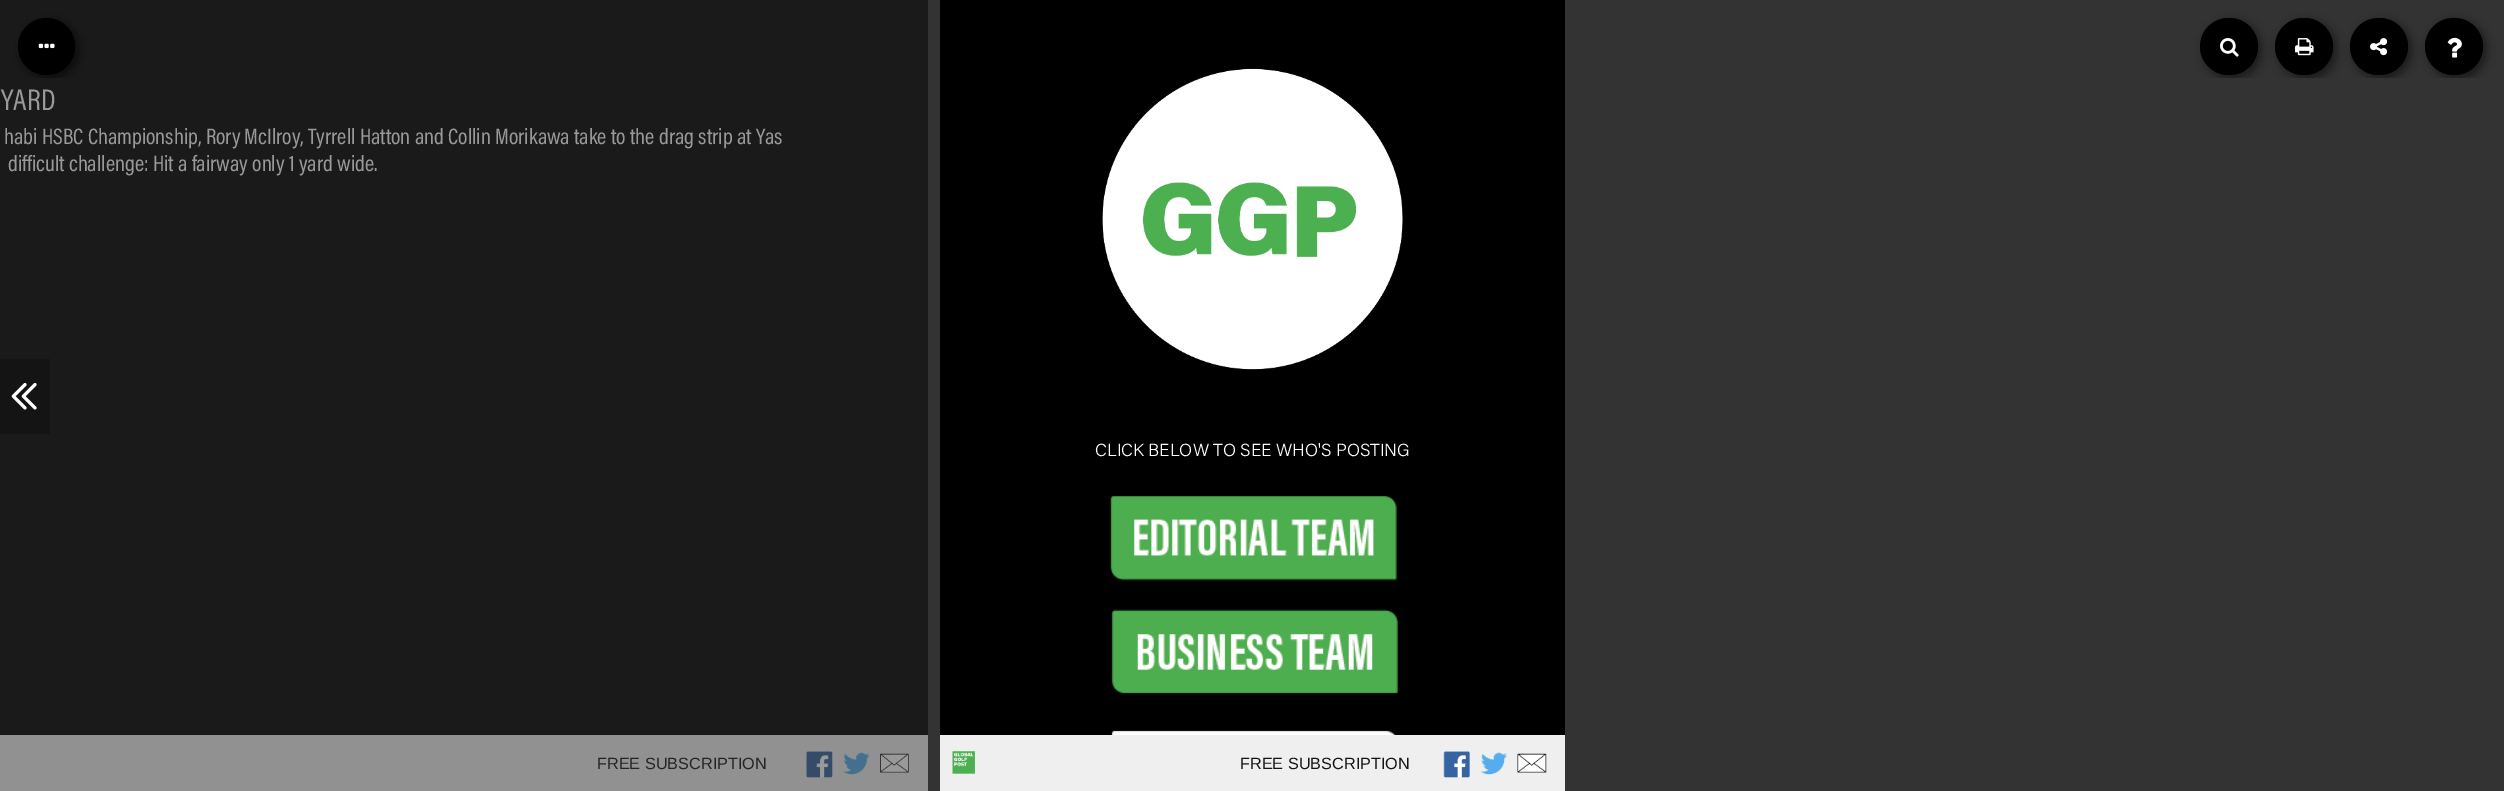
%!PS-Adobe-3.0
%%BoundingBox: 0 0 2504 791
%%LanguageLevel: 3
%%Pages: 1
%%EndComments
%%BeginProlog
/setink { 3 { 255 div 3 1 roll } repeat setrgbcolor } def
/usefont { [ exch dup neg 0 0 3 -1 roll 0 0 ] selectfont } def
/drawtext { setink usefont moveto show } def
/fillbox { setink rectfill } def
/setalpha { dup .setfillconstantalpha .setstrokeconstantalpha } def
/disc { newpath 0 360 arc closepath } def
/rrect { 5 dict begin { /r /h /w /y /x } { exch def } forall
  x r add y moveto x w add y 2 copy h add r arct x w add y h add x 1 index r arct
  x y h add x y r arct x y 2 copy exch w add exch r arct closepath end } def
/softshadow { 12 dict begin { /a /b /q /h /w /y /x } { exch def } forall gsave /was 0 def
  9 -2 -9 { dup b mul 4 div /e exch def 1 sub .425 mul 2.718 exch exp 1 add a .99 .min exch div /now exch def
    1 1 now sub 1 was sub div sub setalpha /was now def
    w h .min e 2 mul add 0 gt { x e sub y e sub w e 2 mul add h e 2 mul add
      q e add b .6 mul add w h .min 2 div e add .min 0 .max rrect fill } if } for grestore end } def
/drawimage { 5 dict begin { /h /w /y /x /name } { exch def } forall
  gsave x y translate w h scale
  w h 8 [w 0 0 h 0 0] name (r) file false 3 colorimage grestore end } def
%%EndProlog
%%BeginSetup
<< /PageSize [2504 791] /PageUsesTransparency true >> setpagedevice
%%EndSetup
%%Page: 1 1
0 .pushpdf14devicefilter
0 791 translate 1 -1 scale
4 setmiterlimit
0 0 2504 791 51 51 51 fillbox
0 0 928 735 26 26 26 fillbox
gsave
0 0 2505 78 rectclip
0 0 0 setink
21 21 58 58 29 5 0.5 softshadow
grestore
0 0 0 setink
46.5 46.5 28.5 disc fill
(assets/img1.rgb) 38 43 17 6 drawimage
gsave
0 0 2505 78 rectclip
2429 21 57 58 28.5 5 0.5 softshadow
grestore
2425 18 58 57 28.5 rrect fill
gsave
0 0 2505 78 rectclip
2354 21 57 58 28.5 5 0.5 softshadow
grestore
2350 18 58 57 28.5 rrect fill
gsave
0 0 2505 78 rectclip
2279 21 57 58 28.5 5 0.5 softshadow
grestore
2275 18 58 57 28.5 rrect fill
gsave
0 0 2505 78 rectclip
2204 21 57 58 28.5 5 0.5 softshadow
grestore
2200 18 58 57 28.5 rrect fill
(assets/img2.rgb) 2220 38 19 19 drawimage
(assets/img3.rgb) 2295 38 19 18 drawimage
(assets/img4.rgb) 2370 38 18 18 drawimage
(assets/img5.rgb) 2447 37 15 21 drawimage
(YARD) 1 110 /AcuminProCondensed-Regular 30 153 153 153 drawtext
(habi HSBC Championship, Rory McIlroy, Tyrrell Hatton and Collin Morikawa take to the drag strip at Yas) 4 144 /AcuminProCondensed-Regular 22.5 153 153 153 drawtext
(difficult challenge: Hit a fairway only 1 yard wide.) 8 171 /AcuminProCondensed-Regular 22.5 153 153 153 drawtext
0 735 928 56 145 145 145 fillbox
(FREE SUBSCRIPTION) 597 769 /LiberationSans-Regular 16.25 36 36 36 drawtext
(assets/img6.rgb) 806 751 27 27 drawimage
(assets/img7.rgb) 843 752 27 23 drawimage
(assets/img8.rgb) 880 753 29 20 drawimage
940 0 625 735 0 0 0 fillbox
(assets/img9.rgb) 1102 68 301 302 drawimage
(CLICK BELOW TO SEE WHO'S POSTING) 1095 456 /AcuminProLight-Light 17.5 255 255 255 drawtext
(assets/img10.rgb) 1110 496 287 85 drawimage
(assets/img11.rgb) 1111 609 287 85 drawimage
(assets/img12.rgb) 1111 730 285 5 drawimage
940 735 625 56 239 239 239 fillbox
(assets/img13.rgb) 952 751 23 23 drawimage
(FREE SUBSCRIPTION) 1240 769 /LiberationSans-Regular 16.25 21 21 21 drawtext
(assets/img14.rgb) 1443 751 27 27 drawimage
(assets/img15.rgb) 1481 752 27 23 drawimage
(assets/img16.rgb) 1517 753 30 20 drawimage
0 359 50 75 20 20 20 fillbox
(assets/img17.rgb) 11 383 26 27 drawimage
.poppdf14devicefilter showpage
%%EOF
